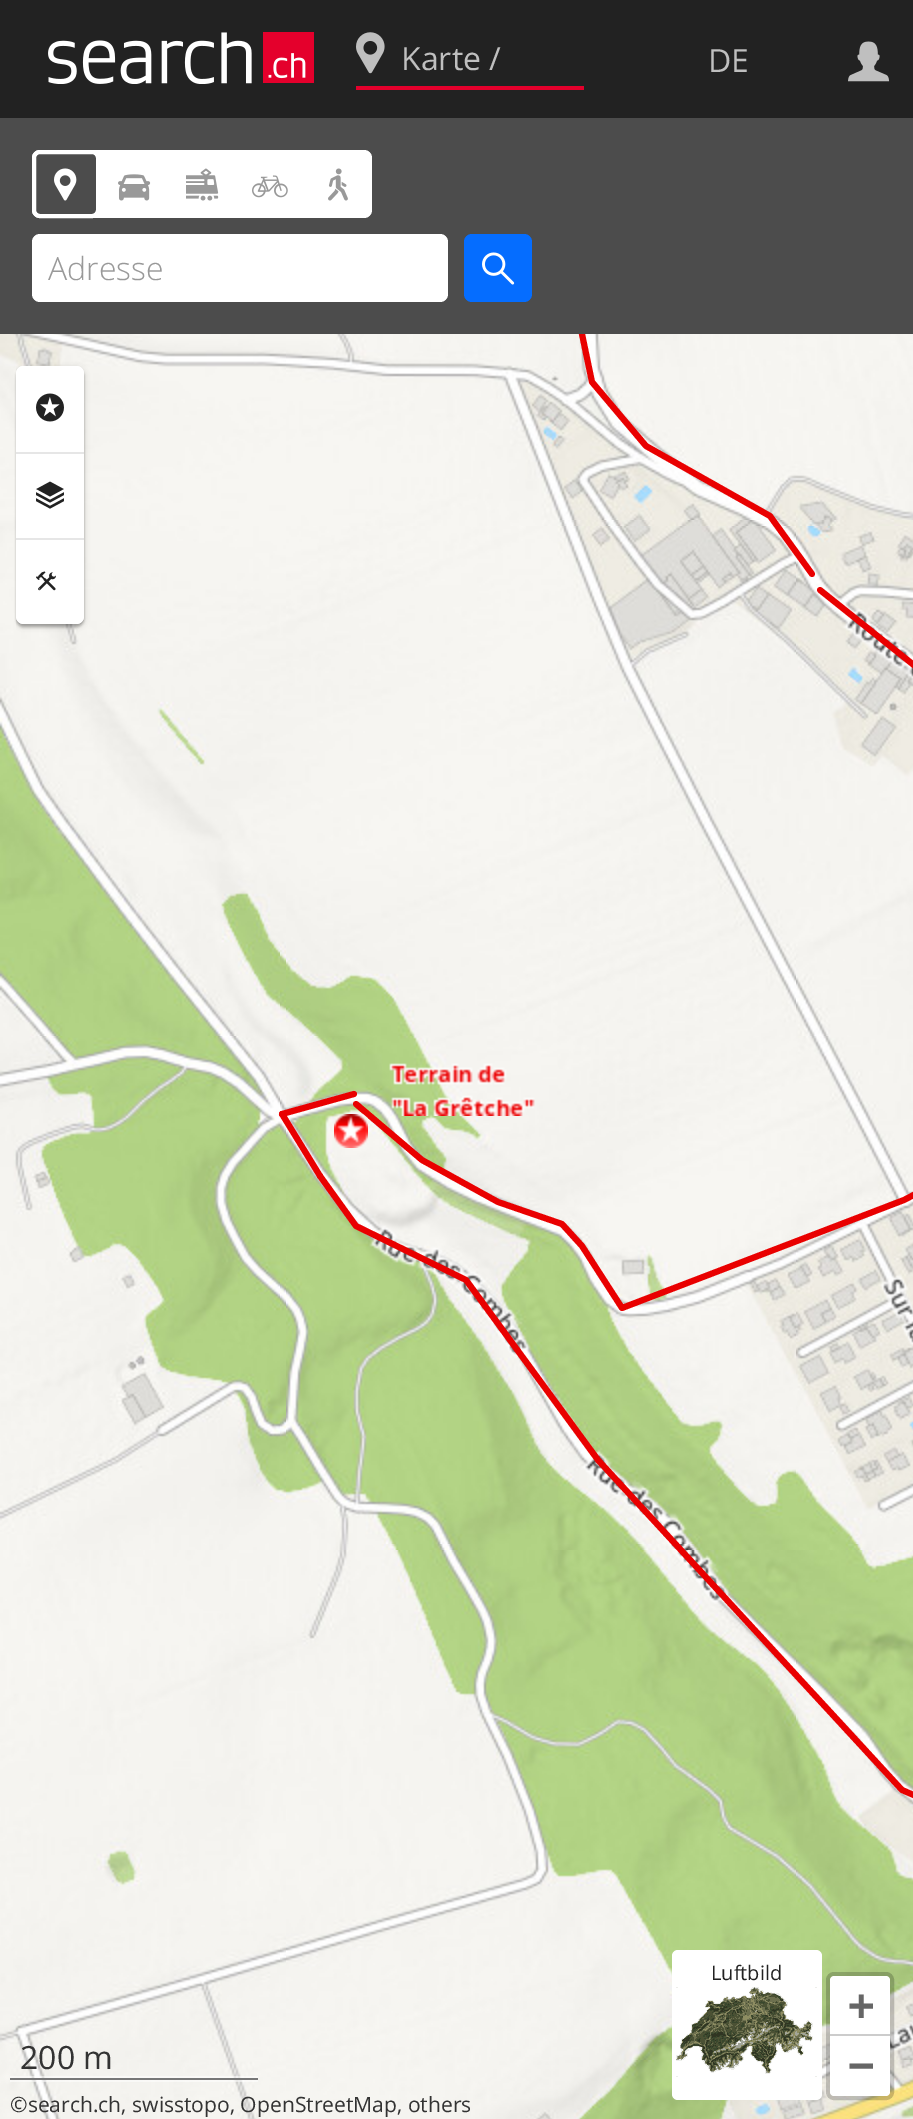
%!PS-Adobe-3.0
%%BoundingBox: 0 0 913 2119
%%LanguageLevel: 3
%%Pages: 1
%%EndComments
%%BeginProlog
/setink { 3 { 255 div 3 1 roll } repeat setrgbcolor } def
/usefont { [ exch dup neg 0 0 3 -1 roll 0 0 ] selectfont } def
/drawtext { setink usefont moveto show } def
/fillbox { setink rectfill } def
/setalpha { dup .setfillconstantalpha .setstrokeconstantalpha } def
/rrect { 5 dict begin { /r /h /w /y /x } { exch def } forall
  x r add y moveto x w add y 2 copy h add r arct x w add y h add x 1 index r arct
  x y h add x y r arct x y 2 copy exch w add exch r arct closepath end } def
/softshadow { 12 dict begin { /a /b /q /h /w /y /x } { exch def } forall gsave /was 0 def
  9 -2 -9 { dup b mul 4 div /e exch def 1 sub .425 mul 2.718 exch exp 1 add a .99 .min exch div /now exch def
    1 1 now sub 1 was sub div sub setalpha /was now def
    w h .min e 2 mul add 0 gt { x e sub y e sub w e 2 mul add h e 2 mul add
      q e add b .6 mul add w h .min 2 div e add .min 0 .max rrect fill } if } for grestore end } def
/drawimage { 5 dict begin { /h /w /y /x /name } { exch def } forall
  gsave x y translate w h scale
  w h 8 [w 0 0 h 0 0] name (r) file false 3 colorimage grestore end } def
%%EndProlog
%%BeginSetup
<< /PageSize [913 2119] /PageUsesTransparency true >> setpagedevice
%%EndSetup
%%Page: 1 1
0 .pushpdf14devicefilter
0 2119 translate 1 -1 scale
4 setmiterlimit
0 0 913 2119 255 255 255 fillbox
(assets/img15.rgb) 286 334 627 192 drawimage
(assets/img17.rgb) 286 526 627 1024 drawimage
233 0 0 setink
6 setlinewidth
1 setlinecap
1 setlinejoin
812 574 moveto 770 516 lineto 646 446 lineto 592 382 lineto 468 -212 lineto stroke
0 0 913 118 34 34 34 fillbox
(assets/img1.rgb) 48 32 266 52 drawimage
356 86 228 4 228 0 44 fillbox
(assets/img2.rgb) 356 32 29 42 drawimage
(Karte /) 401 70 /OpenSans-Regular 32 191 191 191 drawtext
(DE) 708 72 /OpenSans-Regular 32 191 191 191 drawtext
(assets/img3.rgb) 848 41 42 41 drawimage
0 118 913 216 76 76 76 fillbox
255 255 255 setink
32 150 340 68 8 rrect fill
76 76 76 setink
34 152 64 64 6 rrect gsave fill grestore
255 255 255 setink
4 setlinewidth
0 setlinecap
0 setlinejoin
stroke
(assets/img4.rgb) 54 168 23 33 drawimage
(assets/img5.rgb) 118 174 33 27 drawimage
(assets/img6.rgb) 186 168 33 33 drawimage
(assets/img7.rgb) 252 175 36 23 drawimage
(assets/img8.rgb) 328 168 20 33 drawimage
32 234 416 68 8 rrect fill
(Adresse) 48 280 /OpenSans-Light 32 153 153 153 drawtext
5 109 255 setink
464 234 68 68 8 rrect fill
(assets/img9.rgb) 482 252 33 33 drawimage
(assets/img14.rgb) 0 334 286 192 drawimage
(assets/img16.rgb) 0 526 286 1024 drawimage
gsave
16 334 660 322 rectclip
0 0 0 setink
16 368 68 258 8 3 0.2 softshadow
grestore
0 0 0 setink
16 370 68 258 8 1 0.12 softshadow
16 368 68 258 8 1 0.14 softshadow
255 255 255 setink
16 366 68 258 8 rrect fill
24 366 moveto 76 366 lineto 80.5 366 84 369.5 84 374 curveto 84 454 lineto 16 454 lineto 16 374 lineto 16 369.5 19.5 366 24 366 curveto closepath fill
16 452 68 2 230 230 230 fillbox
(assets/img10.rgb) 36 393 28 29 drawimage
16 538 68 2 230 230 230 fillbox
(assets/img11.rgb) 36 481 28 28 drawimage
255 255 255 setink
16 540 moveto 84 540 lineto 84 616 lineto 84 620.5 80.5 624 76 624 curveto 24 624 lineto 19.5 624 16 620.5 16 616 curveto closepath fill
(assets/img12.rgb) 36 571 20 20 drawimage
(assets/img19.rgb) 286 1550 627 569 drawimage
(assets/img21.rgb) 673 1550 240 504 drawimage
672 1950 150 150 6 rrect fill
(assets/img13.rgb) 676 1987 141 90 drawimage
(Luftbild) 711 1980 /OpenSans-Regular 20 34 34 34 drawtext
(assets/img20.rgb) 369 608 544 942 drawimage
233 0 0 setink
6 setlinewidth
1 setlinecap
1 setlinejoin
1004 1834 moveto 902 1790 lineto 598 1460 lineto 466 1280 lineto 356 1226 lineto 320 1176 lineto stroke
320 1176 moveto 282 1114 lineto stroke
354 1094 moveto 282 1114 lineto 354 1094 lineto stroke
356 1104 moveto 422 1160 lineto 498 1202 lineto 562 1224 lineto 582 1246 lineto 622 1308 lineto 904 1200 lineto 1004 1148 lineto 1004 732 moveto 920 670 lineto 820 590 lineto stroke
(assets/img18.rgb) 0 1550 286 569 drawimage
(assets/img22.rgb) 389 1063 146 53 drawimage
(assets/img23.rgb) 334 1114 34 34 drawimage
0.2 setalpha
0 0 0 setink
4 setlinewidth
0 setlinecap
0 setlinejoin
828 1974 64 124 6 rrect stroke
1 setalpha
255 255 255 setink
834 1976 moveto 886 1976 lineto 888 1976 890 1978 890 1980 curveto 890 2036 lineto 830 2036 lineto 830 1980 lineto 830 1978 832 1976 834 1976 curveto closepath fill
830 2034 60 2 204 204 204 fillbox
(+) 848 2020 /DejaVuSansMono-Bold 44 102 102 102 drawtext
255 255 255 setink
830 2036 moveto 890 2036 lineto 890 2092 lineto 890 2094 888 2096 886 2096 curveto 834 2096 lineto 832 2096 830 2094 830 2092 curveto closepath fill
(−) 848 2080 /DejaVuSansMono-Bold 44 102 102 102 drawtext
0.5 setalpha
10 2080 248 2 255 255 255 fillbox
10 2076 248 2 255 255 255 fillbox
1 setalpha
10 2078 248 2 119 119 119 fillbox
(200 m) 20 2069 /OpenSans-Regular 32 51 51 51 drawtext
(©search.ch, swisstopo, OpenStreetMap, others) 10 2112 /OpenSans-Regular 21.1 51 51 51 drawtext
.poppdf14devicefilter showpage
%%EOF
